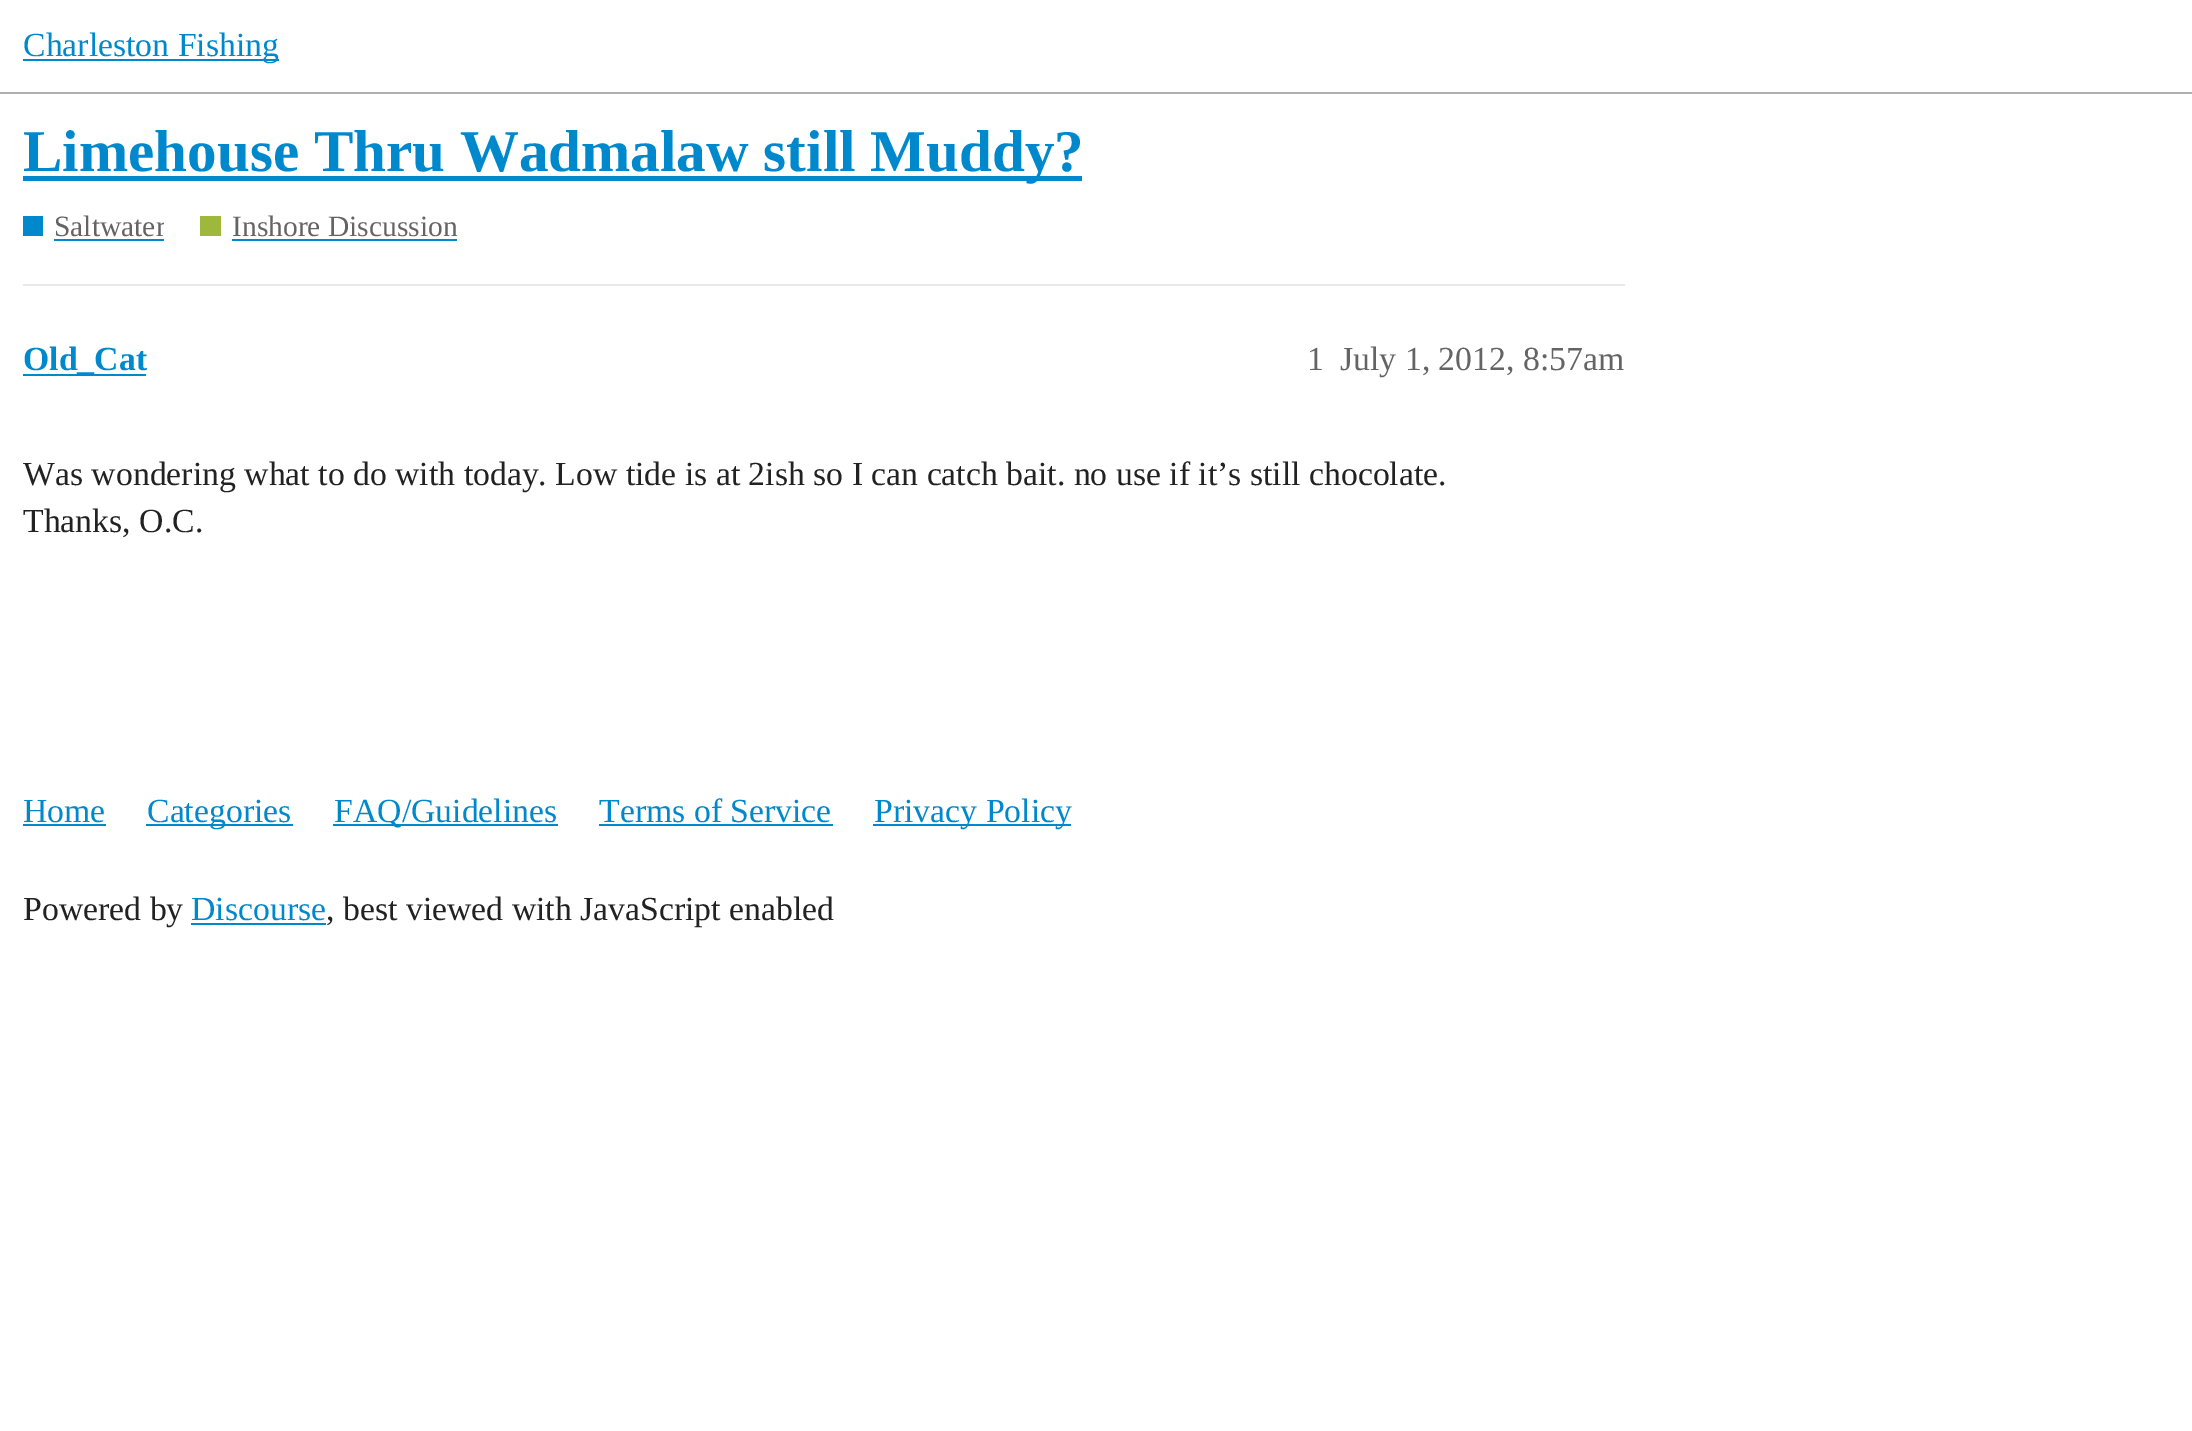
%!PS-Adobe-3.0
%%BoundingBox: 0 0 2192 1431
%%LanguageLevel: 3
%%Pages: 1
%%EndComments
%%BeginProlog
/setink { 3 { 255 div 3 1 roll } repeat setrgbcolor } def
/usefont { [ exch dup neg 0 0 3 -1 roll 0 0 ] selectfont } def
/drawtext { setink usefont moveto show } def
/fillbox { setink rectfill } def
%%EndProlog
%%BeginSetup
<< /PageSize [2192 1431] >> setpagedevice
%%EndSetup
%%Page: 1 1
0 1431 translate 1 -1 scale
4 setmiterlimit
0 0 2192 1431 255 255 255 fillbox
0 92 2192 2 175 175 175 fillbox
23 59 256 2 0 136 204 fillbox
(Charleston Fishing) 23 56 /LiberationSerif-Regular 33.75 0 136 204 drawtext
23 176 1059 5 0 136 204 fillbox
(Limehouse Thru Wadmalaw still Muddy?) 23 171 /LiberationSerif-Bold 59.1 0 136 204 drawtext
23 216 20 20 0 136 204 fillbox
gsave
54 207 110 41 rectclip
(Saltwater) 54 236 /LiberationSerif-Regular 29.5 100 100 100 drawtext
grestore
54 239 110 2 0 136 204 fillbox
200 216 21 20 158 184 59 fillbox
(Inshore Discussion) 232 236 /LiberationSerif-Regular 29.5 100 100 100 drawtext
232 239 225 2 0 136 204 fillbox
23 284 1602 2 233 233 233 fillbox
23 374 123 2 0 136 204 fillbox
(Old_Cat) 23 370 /LiberationSerif-Bold 33.75 0 136 204 drawtext
(1) 1307 370 /LiberationSerif-Regular 33.75 100 100 100 drawtext
(July 1, 2012, 8:57am) 1340 370 /LiberationSerif-Regular 33.75 100 100 100 drawtext
(Was wondering what to do with today. Low tide is at 2ish so I can catch bait. no use if it’s still chocolate.) 23 485 /LiberationSerif-Regular 33.75 34 34 34 drawtext
(Thanks, O.C.) 23 532 /LiberationSerif-Regular 33.75 34 34 34 drawtext
(Home) 23 822 /LiberationSerif-Regular 33.75 0 136 204 drawtext
23 824 83 2 0 136 204 fillbox
146 824 147 2 0 136 204 fillbox
(Categories) 147 822 /LiberationSerif-Regular 33.75 0 136 204 drawtext
333 824 225 2 0 136 204 fillbox
(FAQ/Guidelines) 334 822 /LiberationSerif-Regular 33.75 0 136 204 drawtext
(Terms of Service) 599 822 /LiberationSerif-Regular 33.75 0 136 204 drawtext
599 824 234 2 0 136 204 fillbox
873 824 198 2 0 136 204 fillbox
(Privacy Policy) 874 822 /LiberationSerif-Regular 33.75 0 136 204 drawtext
(Powered by) 23 920 /LiberationSerif-Regular 33.75 34 34 34 drawtext
(Discourse) 191 920 /LiberationSerif-Regular 33.75 0 136 204 drawtext
191 923 135 2 0 136 204 fillbox
(, best viewed with JavaScript enabled) 326 920 /LiberationSerif-Regular 33.75 34 34 34 drawtext
showpage
%%EOF
